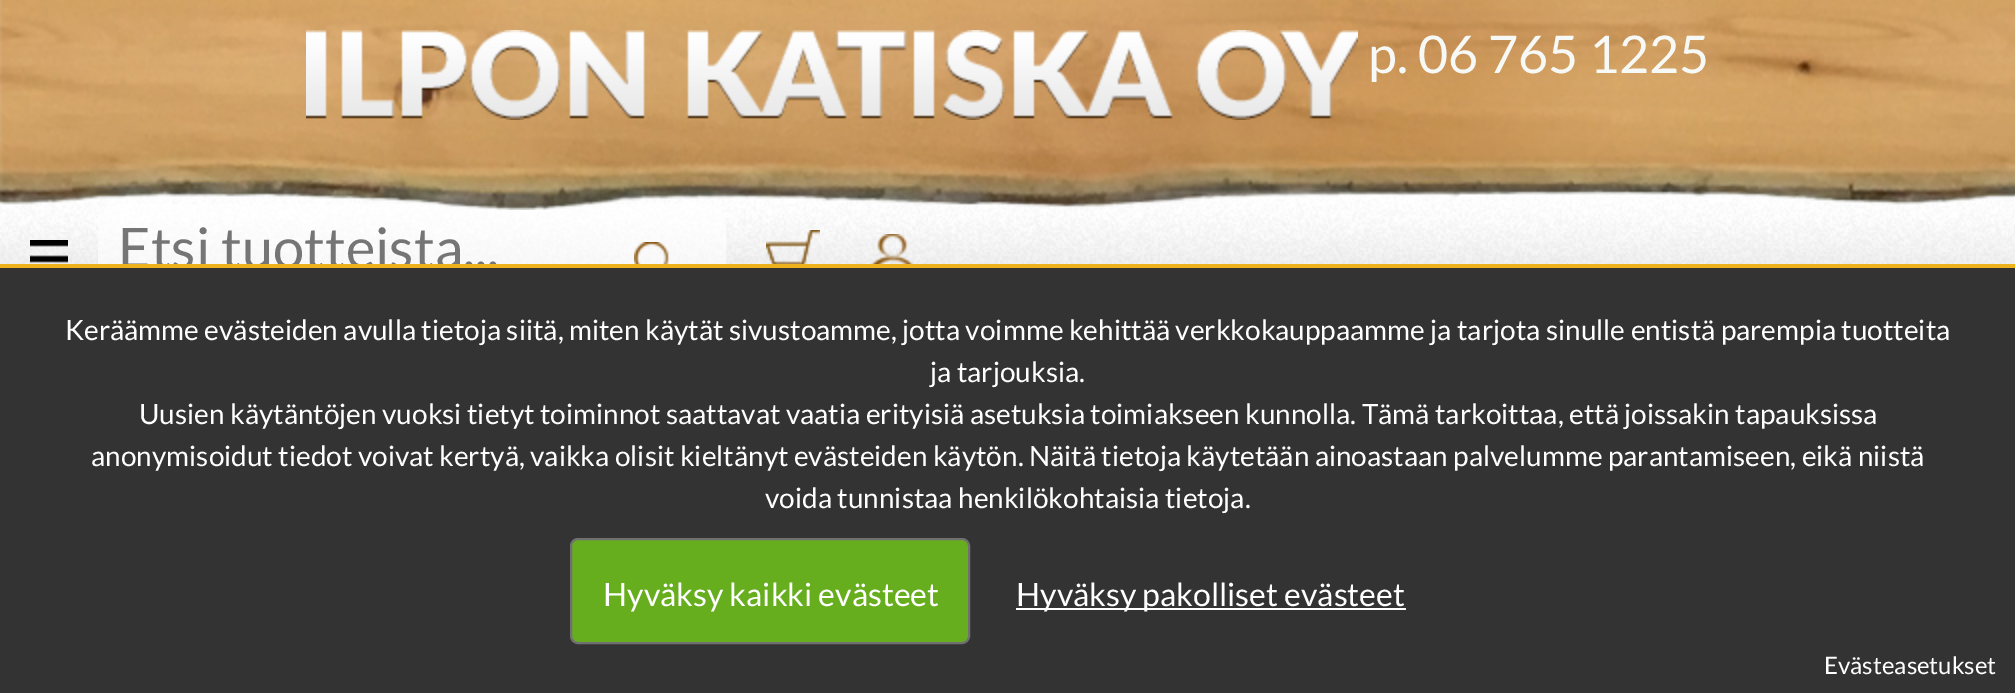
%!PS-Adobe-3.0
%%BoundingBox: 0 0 2015 693
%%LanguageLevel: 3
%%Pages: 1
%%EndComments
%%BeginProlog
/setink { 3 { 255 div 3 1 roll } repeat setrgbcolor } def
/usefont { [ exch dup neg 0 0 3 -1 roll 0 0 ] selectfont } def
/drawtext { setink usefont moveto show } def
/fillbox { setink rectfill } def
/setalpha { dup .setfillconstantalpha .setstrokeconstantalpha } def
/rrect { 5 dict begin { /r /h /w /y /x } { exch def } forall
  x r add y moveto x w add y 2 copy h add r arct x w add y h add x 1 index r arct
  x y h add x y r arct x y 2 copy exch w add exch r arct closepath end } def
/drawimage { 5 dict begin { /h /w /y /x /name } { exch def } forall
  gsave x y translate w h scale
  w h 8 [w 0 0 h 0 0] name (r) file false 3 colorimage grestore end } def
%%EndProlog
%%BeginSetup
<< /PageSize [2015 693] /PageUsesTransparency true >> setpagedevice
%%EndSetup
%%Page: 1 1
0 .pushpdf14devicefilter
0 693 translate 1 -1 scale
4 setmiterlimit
0 0 2015 693 255 255 255 fillbox
(assets/img1.rgb) 0 0 2015 194 drawimage
(assets/img4.rgb) 0 194 2015 70 drawimage
0.6 setalpha
98 204 628 86 20 rrect fill
1 setalpha
(assets/img2.rgb) 0 0 2015 210 drawimage
(assets/img3.rgb) 306 30 1052 90 drawimage
(p. 06 765 1225) 1368 73 /Lato-Regular 52 247 249 246 drawtext
(assets/img5.rgb) 30 240 38 23 drawimage
(Etsi tuotteista...) 118 268 /Lato-Regular 56 117 117 117 drawtext
(assets/img6.rgb) 634 242 36 22 drawimage
(assets/img7.rgb) 766 230 54 34 drawimage
(assets/img8.rgb) 871 234 43 30 drawimage
0 268 2015 425 51 51 51 fillbox
0 264 2015 4 238 178 28 fillbox
(Keräämme evästeiden avulla tietoja siitä, miten käytät sivustoamme, jotta voimme kehittää verkkokauppaamme ja tarjota sinulle entistä parempia tuotteita) 65 340 /Lato-Regular 28 255 255 255 drawtext
(ja tarjouksia.) 930 382 /Lato-Regular 28 255 255 255 drawtext
(Uusien käytäntöjen vuoksi tietyt toiminnot saattavat vaatia erityisiä asetuksia toimiakseen kunnolla. Tämä tarkoittaa, että joissakin tapauksissa) 139 424 /Lato-Regular 28 255 255 255 drawtext
(anonymisoidut tiedot voivat kertyä, vaikka olisit kieltänyt evästeiden käytön. Näitä tietoja käytetään ainoastaan palvelumme parantamiseen, eikä niistä) 91 466 /Lato-Regular 28 255 255 255 drawtext
(voida tunnistaa henkilökohtaisia tietoja.) 765 508 /Lato-Regular 28 255 255 255 drawtext
103 174 31 setink
571 539 398 104 7 rrect gsave fill grestore
112 112 112 setink
2 setlinewidth
stroke
(Hyväksy kaikki evästeet) 603 606 /Lato-Regular 32 255 255 255 drawtext
1016 608 390 2 255 255 255 fillbox
(Hyväksy pakolliset evästeet) 1016 606 /Lato-Regular 32 255 255 255 drawtext
(Evästeasetukset) 1824 674 /Lato-Regular 24 255 255 255 drawtext
.poppdf14devicefilter showpage
%%EOF
